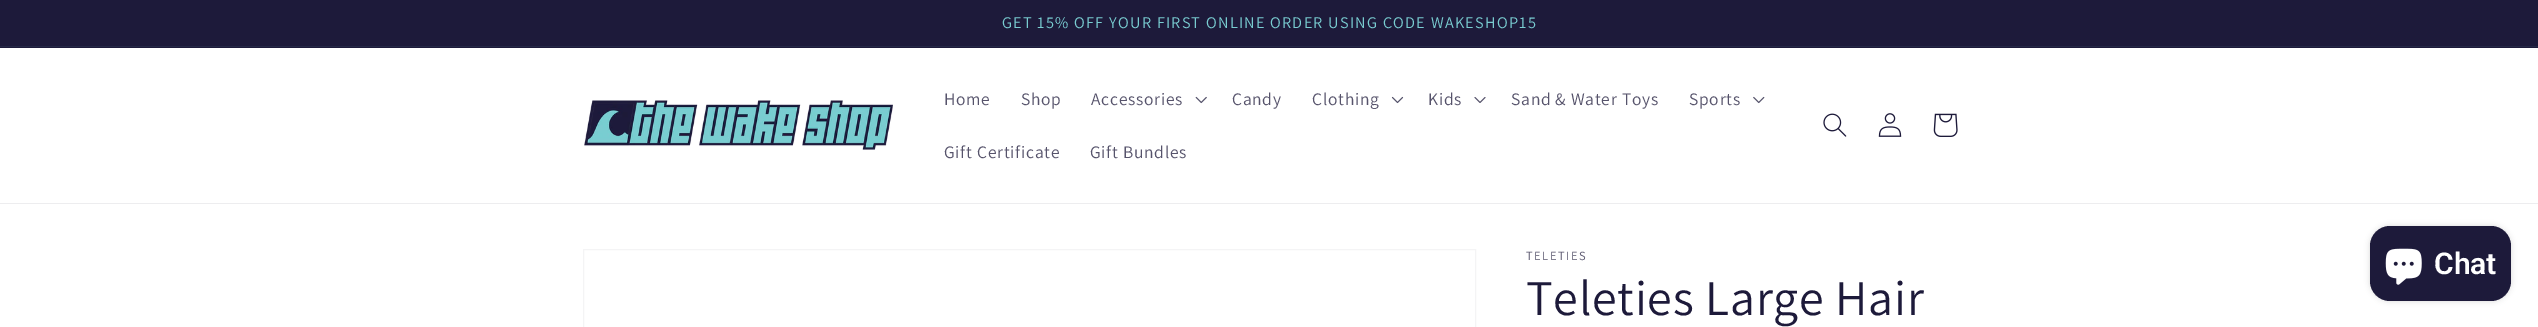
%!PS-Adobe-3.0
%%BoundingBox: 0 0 2538 327
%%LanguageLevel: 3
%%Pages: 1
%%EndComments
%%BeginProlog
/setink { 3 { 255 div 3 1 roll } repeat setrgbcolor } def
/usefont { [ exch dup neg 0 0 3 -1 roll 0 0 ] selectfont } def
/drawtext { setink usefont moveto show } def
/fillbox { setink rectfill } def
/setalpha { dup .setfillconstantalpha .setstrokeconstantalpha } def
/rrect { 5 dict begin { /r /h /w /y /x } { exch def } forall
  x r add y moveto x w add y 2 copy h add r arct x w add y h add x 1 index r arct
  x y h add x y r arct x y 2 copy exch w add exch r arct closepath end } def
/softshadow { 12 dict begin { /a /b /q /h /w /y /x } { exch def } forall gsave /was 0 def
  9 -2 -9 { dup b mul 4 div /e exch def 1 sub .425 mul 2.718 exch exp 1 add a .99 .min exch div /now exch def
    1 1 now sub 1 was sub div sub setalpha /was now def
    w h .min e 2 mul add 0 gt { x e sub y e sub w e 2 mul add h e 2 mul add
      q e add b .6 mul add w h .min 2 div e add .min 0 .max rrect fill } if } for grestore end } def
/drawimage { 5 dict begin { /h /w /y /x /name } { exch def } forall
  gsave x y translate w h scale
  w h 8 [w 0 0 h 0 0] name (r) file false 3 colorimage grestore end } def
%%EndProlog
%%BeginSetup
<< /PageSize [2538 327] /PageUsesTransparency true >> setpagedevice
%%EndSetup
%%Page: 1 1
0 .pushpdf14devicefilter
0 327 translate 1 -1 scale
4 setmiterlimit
0 0 2538 327 255 255 255 fillbox
0 0 2538 48 29 26 58 fillbox
0 46 2538 1 36 40 70 fillbox
/Assistant-Regular 16.25 usefont
121 205 209 setink
1002 28 moveto 1.25 0 (GET 15% OFF YOUR FIRST ONLINE ORDER USING CODE WAKESHOP15) ashow
0 203 2538 1 237 237 239 fillbox
(assets/img1.rgb) 584 100 309 50 drawimage
/Assistant-Regular 17.5 usefont
86 83 107 setink
944 105 moveto 0.75 0 (Home) ashow
1021 105 moveto 0.75 0 (Shop) ashow
1091 105 moveto 0.75 0 (Accessories) ashow
(assets/img2.rgb) 1195 96 12 8 drawimage
1232 105 moveto 0.75 0 (Candy) ashow
1312 105 moveto 0.75 0 (Clothing) ashow
(assets/img3.rgb) 1391 96 13 8 drawimage
1428 105 moveto 0.75 0 (Kids) ashow
(assets/img4.rgb) 1474 97 12 6 drawimage
1511 105 moveto 0.75 0 (Sand & Water Toys) ashow
1689 105 moveto 0.75 0 (Sports) ashow
(assets/img5.rgb) 1753 96 12 8 drawimage
944 158 moveto 0.75 0 (Gift Certificate) ashow
1090 158 moveto 0.75 0 (Gift Bundles) ashow
(assets/img6.rgb) 1823 113 24 24 drawimage
(assets/img7.rgb) 1878 113 24 24 drawimage
(assets/img8.rgb) 1933 113 25 24 drawimage
244 244 245 setink
583.5 249.5 892 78 rectstroke
/Assistant-Regular 12.5 usefont
86 83 107 setink
1526 260 moveto 1.5 0 (TELETIES) ashow
/Assistant-Regular 50 usefont
29 26 58 setink
1526 315 moveto 0.75 0 (Teleties Large Hair) ashow
0 0 0 setink
2370 226 141 75 20 3 0.15 softshadow
29 26 58 setink
2370 226 141 75 20 rrect fill
(assets/img9.rgb) 2385 248 37 37 drawimage
(Chat) 2434 274 /Roboto-SemiBold 30 255 255 255 drawtext
.poppdf14devicefilter showpage
%%EOF
